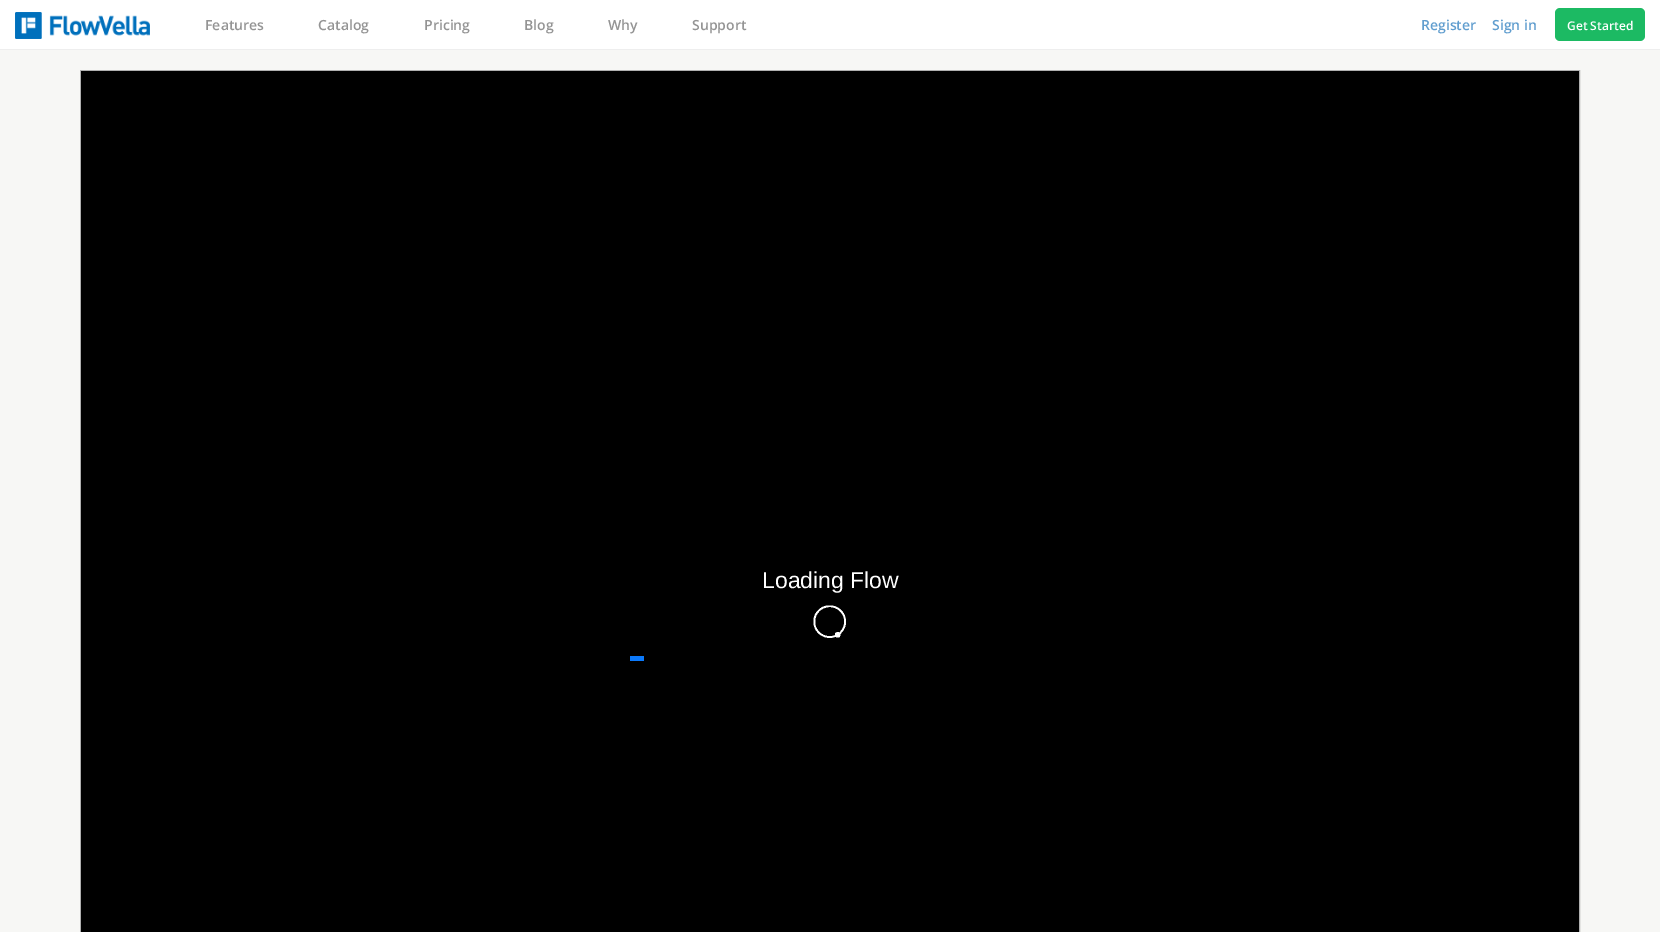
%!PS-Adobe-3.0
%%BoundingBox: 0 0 1660 932
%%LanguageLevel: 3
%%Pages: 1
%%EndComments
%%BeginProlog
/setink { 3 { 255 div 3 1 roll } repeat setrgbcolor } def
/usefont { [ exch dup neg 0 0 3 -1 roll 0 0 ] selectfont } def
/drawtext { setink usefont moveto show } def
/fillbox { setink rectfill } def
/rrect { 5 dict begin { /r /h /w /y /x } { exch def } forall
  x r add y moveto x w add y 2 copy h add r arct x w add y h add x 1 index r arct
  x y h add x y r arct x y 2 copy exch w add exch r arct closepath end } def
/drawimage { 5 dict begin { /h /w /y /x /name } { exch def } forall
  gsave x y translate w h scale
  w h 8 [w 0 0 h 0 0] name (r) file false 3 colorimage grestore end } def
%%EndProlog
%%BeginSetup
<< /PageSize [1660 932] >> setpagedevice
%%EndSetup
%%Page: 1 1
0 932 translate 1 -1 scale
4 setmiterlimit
0 0 1660 932 247 247 245 fillbox
0 0 1660 49 255 255 255 fillbox
0 49 1660 1 238 238 238 fillbox
(assets/img1.rgb) 15 12 135 27 drawimage
(Features) 205 30 /OpenSans-SemiBold 14 148 148 148 drawtext
(Catalog) 318 30 /OpenSans-SemiBold 14 148 148 148 drawtext
(Pricing) 424 30 /OpenSans-SemiBold 14 148 148 148 drawtext
(Blog) 524 30 /OpenSans-SemiBold 14 148 148 148 drawtext
(Why) 608 30 /OpenSans-SemiBold 14 148 148 148 drawtext
(Support) 692 30 /OpenSans-SemiBold 14 148 148 148 drawtext
(Register) 1421 30 /OpenSans-SemiBold 14 97 158 207 drawtext
(Sign in) 1492 30 /OpenSans-SemiBold 14 97 158 207 drawtext
28 186 99 setink
1555 8 90 33 5 rrect fill
(Get Started) 1567 30 /OpenSans-SemiBold 12 255 255 255 drawtext
176 176 176 setink
80.5 70.5 1499 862 rectstroke
81 71 1498 861 0 0 0 fillbox
(Loading Flow) 762 588 /LiberationSans-Regular 23 255 255 255 drawtext
(assets/img2.rgb) 813 605 33 33 drawimage
630 656 14 5 11 121 251 fillbox
showpage
%%EOF
